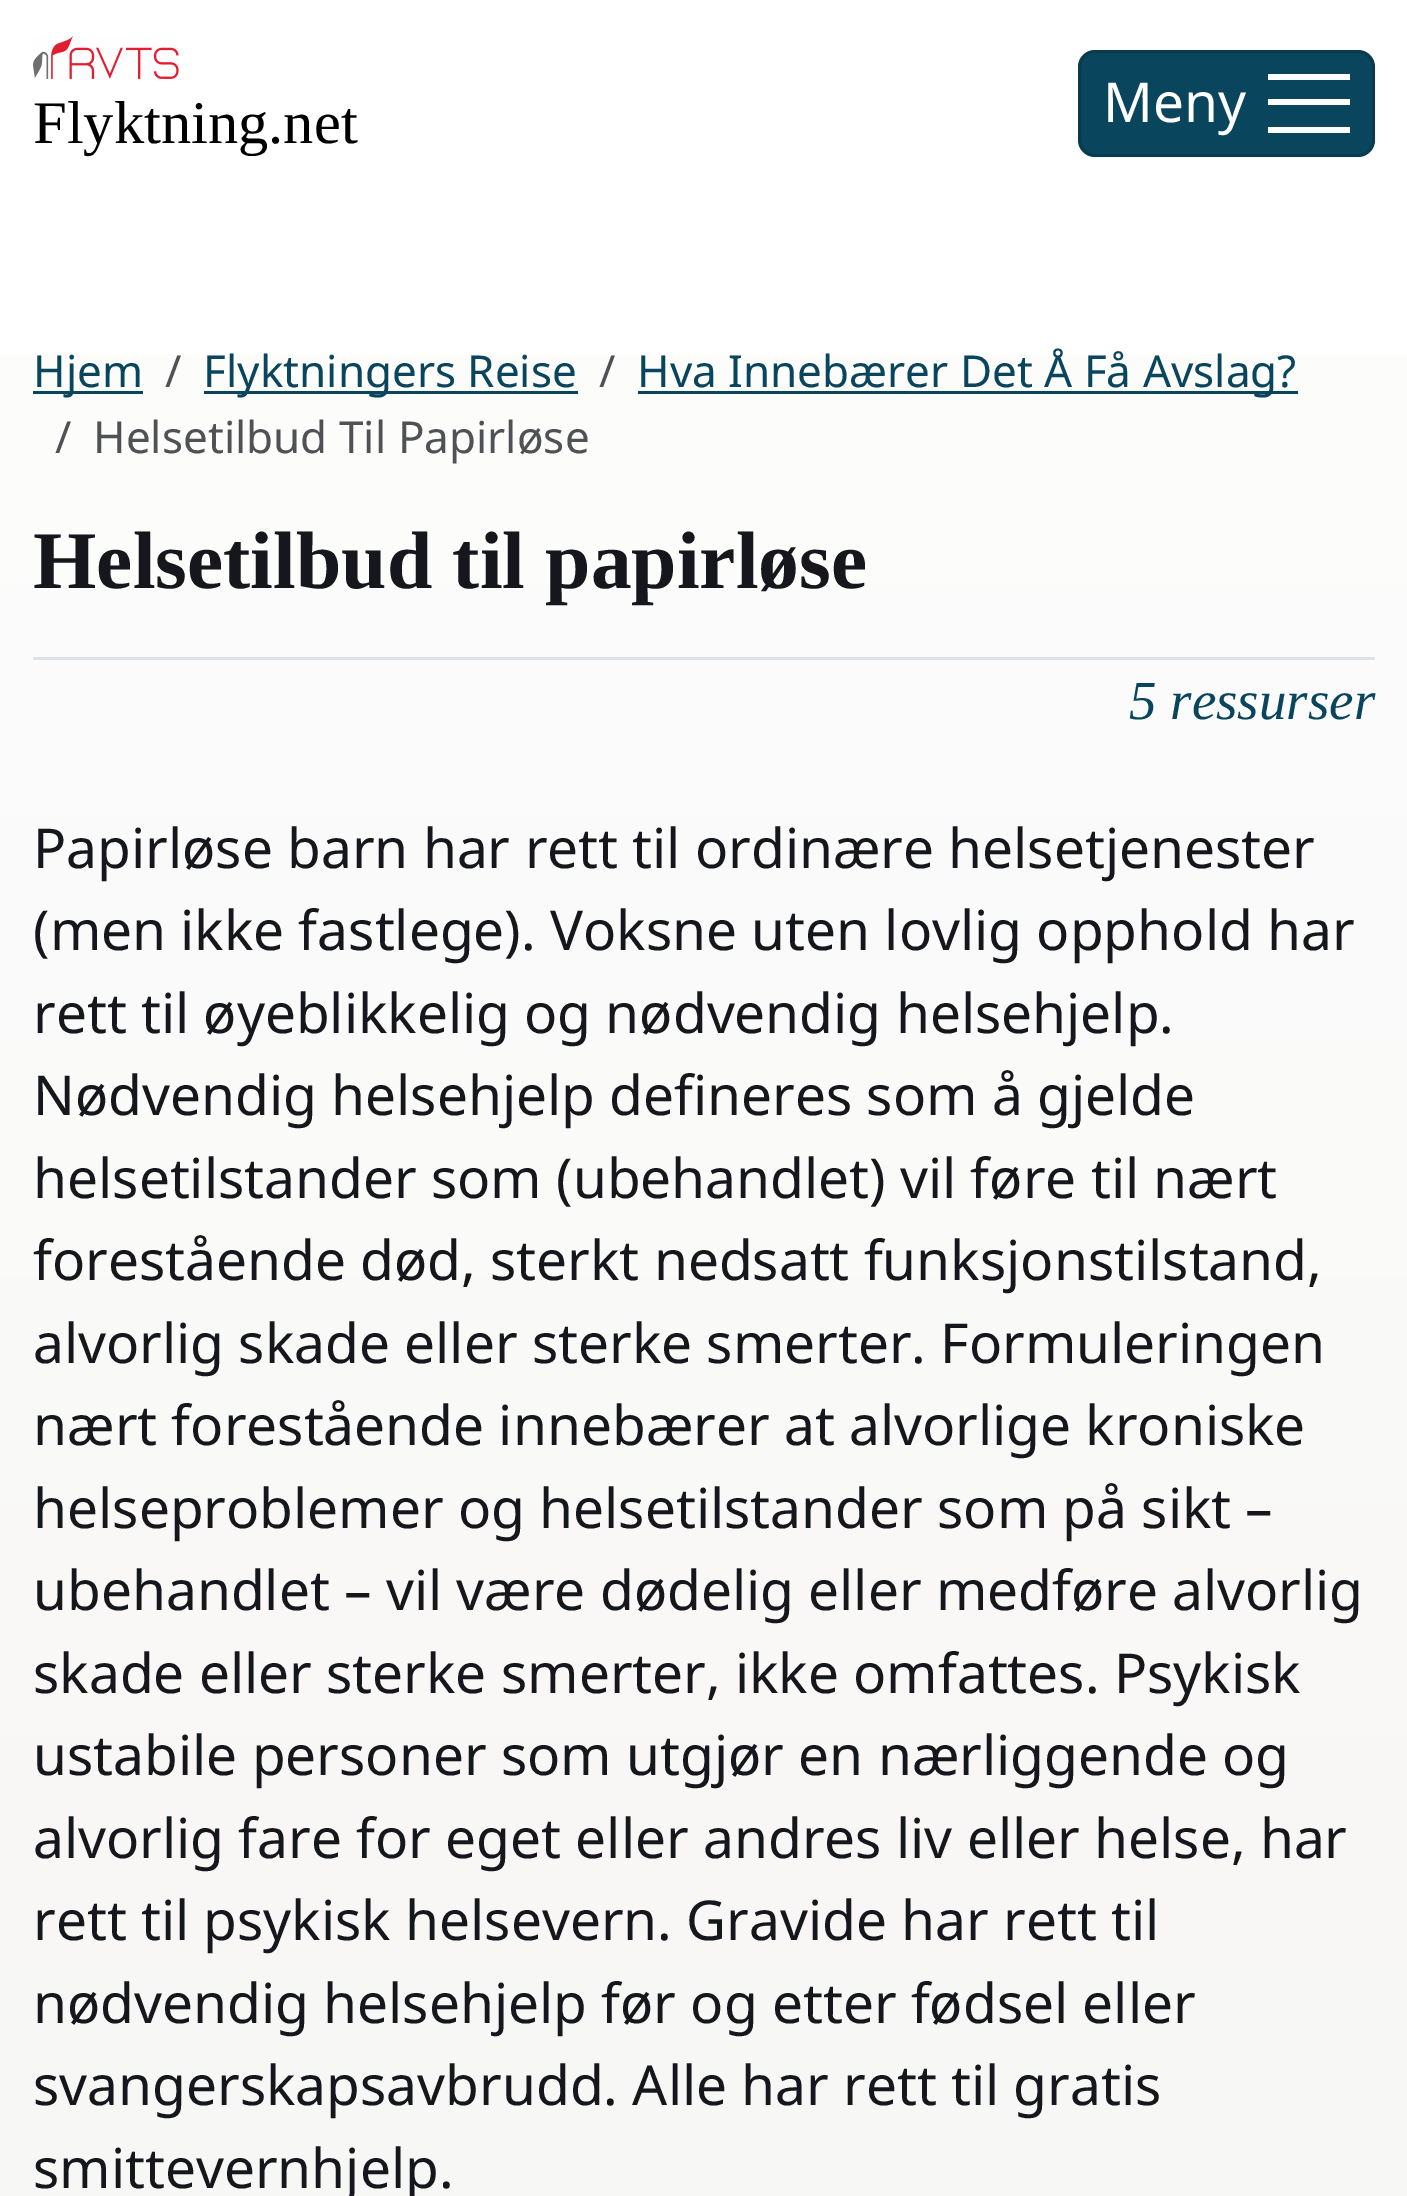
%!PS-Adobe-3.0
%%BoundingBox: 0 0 1407 2196
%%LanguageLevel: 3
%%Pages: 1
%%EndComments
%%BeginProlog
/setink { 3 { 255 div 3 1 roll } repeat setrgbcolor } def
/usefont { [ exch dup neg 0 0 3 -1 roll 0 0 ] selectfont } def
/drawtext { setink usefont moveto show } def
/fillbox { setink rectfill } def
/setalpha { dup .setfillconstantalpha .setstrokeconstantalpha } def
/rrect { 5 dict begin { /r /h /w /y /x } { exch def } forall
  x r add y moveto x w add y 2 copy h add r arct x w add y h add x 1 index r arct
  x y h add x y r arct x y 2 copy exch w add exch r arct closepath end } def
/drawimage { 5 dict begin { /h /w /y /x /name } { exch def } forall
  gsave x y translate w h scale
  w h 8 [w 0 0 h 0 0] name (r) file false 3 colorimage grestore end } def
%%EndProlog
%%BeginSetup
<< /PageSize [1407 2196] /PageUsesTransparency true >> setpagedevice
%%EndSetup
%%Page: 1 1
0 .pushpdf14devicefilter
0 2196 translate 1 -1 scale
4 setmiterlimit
0 0 1407 2196 255 255 255 fillbox
gsave 0 354 moveto 1407 354 lineto 1407 2196 lineto 0 2196 lineto closepath clip newpath
<< /ShadingType 2 /ColorSpace /DeviceRGB /Coords [704 0 704 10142] /Extend [true true] /Function << /FunctionType 2 /Domain [0 1] /C0 [0.996 0.996 0.996] /C1 [0.871 0.863 0.827] /N 1 >> >> shfill grestore
(assets/img1.rgb) 33 36 146 43 drawimage
(Flyktning.net) 33 143 /LiberationSerif-Regular 60.5 0 0 0 drawtext
9 69 92 setink
1078 50 297 107 17 rrect fill
0.15 setalpha
0 0 0 setink
3 setlinewidth
1079.5 51.5 294 104 15.5 rrect stroke
1 setalpha
(Meny) 1103 122 /NotoSans-Regular 55 255 255 255 drawtext
1268 74 82 6 255 255 255 fillbox
1268 99 82 6 255 255 255 fillbox
1268 127 82 6 255 255 255 fillbox
33 391 110 3 9 69 92 fillbox
(Hjem) 33 387 /NotoSans-Regular 44 9 69 92 drawtext
(/) 165 387 /NotoSans-Regular 44 80 81 85 drawtext
204 391 374 3 9 69 92 fillbox
(Flyktningers Reise) 203 387 /NotoSans-Regular 44 9 69 92 drawtext
(/) 599 387 /NotoSans-Regular 44 80 81 85 drawtext
638 391 660 3 9 69 92 fillbox
(Hva Innebærer Det Å Få Avslag?) 637 387 /NotoSans-Regular 44 9 69 92 drawtext
(/) 55 453 /NotoSans-Regular 44 80 81 85 drawtext
(Helsetilbud Til Papirløse) 93 453 /NotoSans-Regular 44 80 81 85 drawtext
(Helsetilbud til papirløse) 33 588 /LiberationSerif-Bold 81.6 22 23 29 drawtext
33 657 1342 3 222 226 230 fillbox
(5 ressurser) 1129 719 /LiberationSerif-Italic 55 9 69 92 drawtext
(Papirløse barn har rett til ordinære helsetjenester) 33 868 /NotoSans-Regular 55 22 23 29 drawtext
(\(men ikke fastlege\). Voksne uten lovlig opphold har) 33 950 /NotoSans-Regular 55 22 23 29 drawtext
(rett til øyeblikkelig og nødvendig helsehjelp.) 33 1033 /NotoSans-Regular 55 22 23 29 drawtext
(Nødvendig helsehjelp defineres som å gjelde) 33 1115 /NotoSans-Regular 55 22 23 29 drawtext
(helsetilstander som \(ubehandlet\) vil føre til nært) 33 1198 /NotoSans-Regular 55 22 23 29 drawtext
(forestående død, sterkt nedsatt funksjonstilstand,) 33 1280 /NotoSans-Regular 55 22 23 29 drawtext
(alvorlig skade eller sterke smerter. Formuleringen) 33 1363 /NotoSans-Regular 55 22 23 29 drawtext
(nært forestående innebærer at alvorlige kroniske) 33 1445 /NotoSans-Regular 55 22 23 29 drawtext
(helseproblemer og helsetilstander som på sikt –) 33 1528 /NotoSans-Regular 55 22 23 29 drawtext
(ubehandlet – vil være dødelig eller medføre alvorlig) 33 1610 /NotoSans-Regular 55 22 23 29 drawtext
(skade eller sterke smerter, ikke omfattes. Psykisk) 33 1693 /NotoSans-Regular 55 22 23 29 drawtext
(ustabile personer som utgjør en nærliggende og) 33 1775 /NotoSans-Regular 55 22 23 29 drawtext
(alvorlig fare for eget eller andres liv eller helse, har) 33 1858 /NotoSans-Regular 55 22 23 29 drawtext
(rett til psykisk helsevern. Gravide har rett til) 33 1940 /NotoSans-Regular 55 22 23 29 drawtext
(nødvendig helsehjelp før og etter fødsel eller) 33 2023 /NotoSans-Regular 55 22 23 29 drawtext
(svangerskapsavbrudd. Alle har rett til gratis) 33 2105 /NotoSans-Regular 55 22 23 29 drawtext
(smittevernhjelp.) 33 2188 /NotoSans-Regular 55 22 23 29 drawtext
.poppdf14devicefilter showpage
%%EOF
